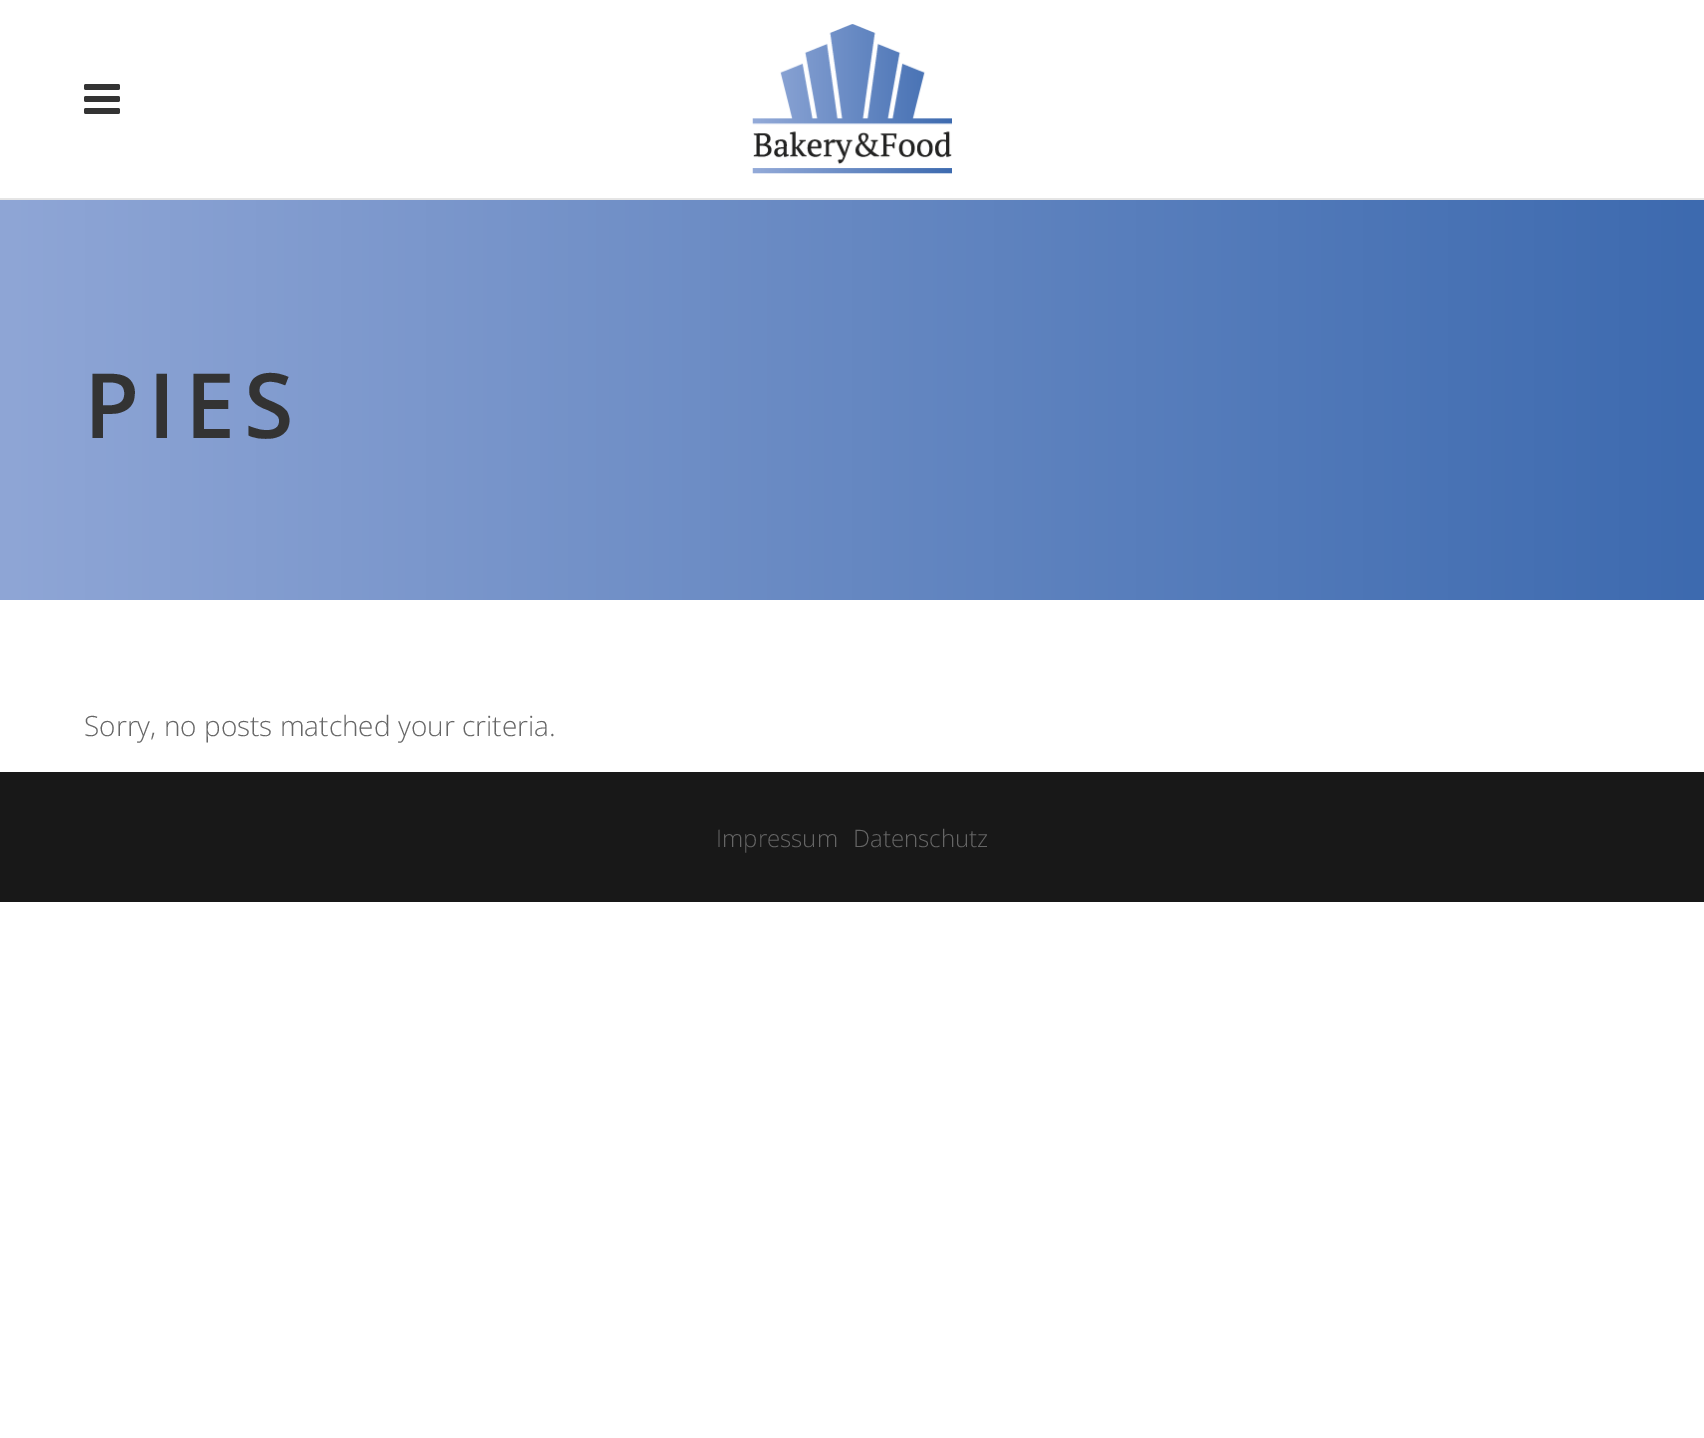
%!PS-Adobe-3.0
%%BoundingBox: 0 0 1704 1438
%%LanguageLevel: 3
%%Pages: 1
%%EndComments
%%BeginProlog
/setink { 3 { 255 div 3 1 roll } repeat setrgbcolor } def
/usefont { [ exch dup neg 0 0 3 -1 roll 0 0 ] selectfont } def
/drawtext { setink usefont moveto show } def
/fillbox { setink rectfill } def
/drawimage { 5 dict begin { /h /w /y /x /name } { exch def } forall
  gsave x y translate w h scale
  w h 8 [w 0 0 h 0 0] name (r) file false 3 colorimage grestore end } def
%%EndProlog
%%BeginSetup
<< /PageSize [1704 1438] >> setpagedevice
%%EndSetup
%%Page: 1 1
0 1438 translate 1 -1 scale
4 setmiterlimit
0 0 1704 1438 255 255 255 fillbox
0 198 1704 2 229 229 229 fillbox
(assets/img1.rgb) 84 84 36 30 drawimage
(assets/img2.rgb) 752 24 200 150 drawimage
gsave 0 200 moveto 1704 200 lineto 1704 600 lineto 0 600 lineto closepath clip newpath
<< /ShadingType 2 /ColorSpace /DeviceRGB /Coords [0 400 1704 400] /Extend [true true] /Function << /FunctionType 2 /Domain [0 1] /C0 [0.561 0.651 0.839] /C1 [0.239 0.416 0.686] /N 1 >> >> shfill grestore
/OpenSans-SemiBold 90 usefont
51 51 51 setink
84 438 moveto 9 0 (PIES) ashow
(Sorry, no posts matched your criteria.) 84 736 /OpenSans-Light 28 102 102 102 drawtext
0 772 1704 130 24 24 24 fillbox
(Impressum) 716 847 /OpenSans-Light 24 102 102 102 drawtext
(Datenschutz) 853 847 /OpenSans-Light 24 102 102 102 drawtext
showpage
%%EOF
